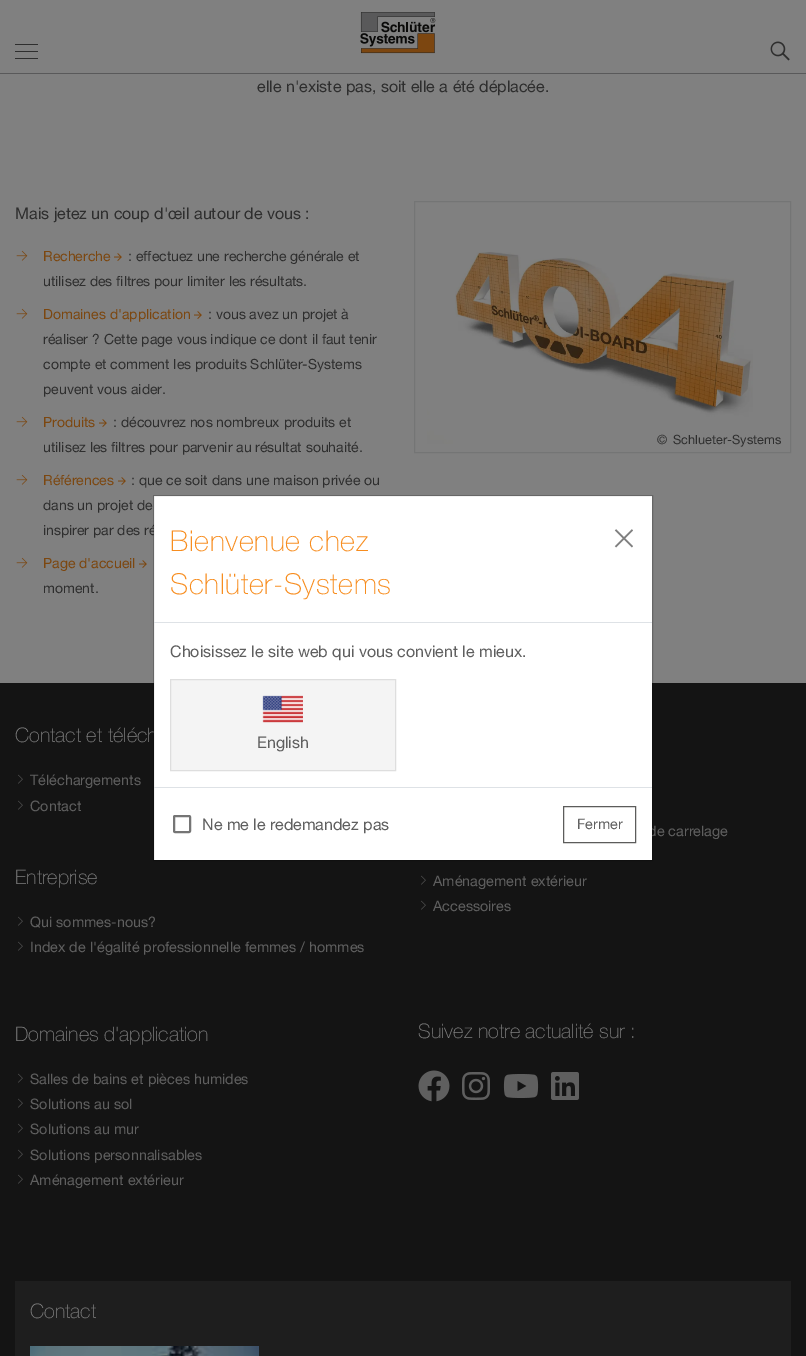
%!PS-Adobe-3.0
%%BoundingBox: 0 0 806 1356
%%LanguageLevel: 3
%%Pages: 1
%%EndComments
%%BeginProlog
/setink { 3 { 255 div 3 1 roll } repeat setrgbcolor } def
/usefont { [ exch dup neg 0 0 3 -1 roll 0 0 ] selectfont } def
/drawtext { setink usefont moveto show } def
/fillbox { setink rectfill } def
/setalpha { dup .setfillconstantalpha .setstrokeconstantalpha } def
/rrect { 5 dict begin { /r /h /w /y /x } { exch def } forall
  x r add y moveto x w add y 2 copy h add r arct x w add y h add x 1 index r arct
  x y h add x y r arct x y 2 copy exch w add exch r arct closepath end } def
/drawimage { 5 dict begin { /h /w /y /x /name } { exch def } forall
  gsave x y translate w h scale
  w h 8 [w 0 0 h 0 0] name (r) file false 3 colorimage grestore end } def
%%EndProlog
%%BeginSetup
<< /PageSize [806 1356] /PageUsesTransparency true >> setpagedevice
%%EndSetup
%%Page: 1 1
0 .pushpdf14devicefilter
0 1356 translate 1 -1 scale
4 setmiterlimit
0 0 806 1356 128 128 128 fillbox
0 73 806 1 89 89 90 fillbox
(assets/img1.rgb) 360 12 76 42 drawimage
15 44 23 1 46 46 46 fillbox
15 51 23 1 46 46 46 fillbox
15 58 23 1 46 46 46 fillbox
(assets/img2.rgb) 770 41 20 20 drawimage
(elle n'existe pas, soit elle a été déplacée.) 257 92 /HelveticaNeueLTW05-Regular 16 46 46 46 drawtext
(Mais jetez un coup d'œil autour de vous :) 15 219 /HelveticaNeueLTW05-Regular 16 46 46 46 drawtext
(assets/img3.rgb) 16 250 12 11 drawimage
(Recherche) 43 261 /HelveticaNeueLTW05-Regular 14 124 71 16 drawtext
(assets/img4.rgb) 114 253 8 8 drawimage
(: effectuez une recherche générale et) 128 261 /HelveticaNeueLTW05-Regular 14 46 46 46 drawtext
(utilisez des filtres pour limiter les résultats.) 43 286 /HelveticaNeueLTW05-Regular 14 46 46 46 drawtext
(assets/img3.rgb) 16 308 12 11 drawimage
(Domaines d'application) 43 319 /HelveticaNeueLTW05-Regular 14 124 71 16 drawtext
(assets/img4.rgb) 194 311 8 8 drawimage
(: vous avez un projet à) 208 319 /HelveticaNeueLTW05-Regular 14 46 46 46 drawtext
(réaliser ? Cette page vous indique ce dont il faut tenir) 43 344 /HelveticaNeueLTW05-Regular 14 46 46 46 drawtext
(compte et comment les produits Schlüter-Systems) 43 369 /HelveticaNeueLTW05-Regular 14 46 46 46 drawtext
(peuvent vous aider.) 43 394 /HelveticaNeueLTW05-Regular 14 46 46 46 drawtext
(assets/img3.rgb) 16 416 12 11 drawimage
(Produits) 43 427 /HelveticaNeueLTW05-Regular 14 124 71 16 drawtext
(assets/img4.rgb) 99 419 8 8 drawimage
(: découvrez nos nombreux produits et) 113 427 /HelveticaNeueLTW05-Regular 14 46 46 46 drawtext
(utilisez les filtres pour parvenir au résultat souhaité.) 43 452 /HelveticaNeueLTW05-Regular 14 46 46 46 drawtext
(assets/img3.rgb) 16 474 12 11 drawimage
(Références) 43 485 /HelveticaNeueLTW05-Regular 14 124 71 16 drawtext
(assets/img4.rgb) 118 477 8 8 drawimage
(: que ce soit dans une maison privée ou) 131 485 /HelveticaNeueLTW05-Regular 14 46 46 46 drawtext
(dans un projet de) 43 510 /HelveticaNeueLTW05-Regular 14 46 46 46 drawtext
(inspirer par des ré) 43 535 /HelveticaNeueLTW05-Regular 14 46 46 46 drawtext
(assets/img3.rgb) 16 557 12 11 drawimage
(Page d'accueil) 43 568 /HelveticaNeueLTW05-Regular 14 124 71 16 drawtext
(assets/img4.rgb) 139 560 8 8 drawimage
(moment.) 43 593 /HelveticaNeueLTW05-Regular 14 46 46 46 drawtext
116 117 117 setink
414.5 201.5 376 251 rectstroke
(assets/img5.rgb) 427 252 326 192 drawimage
(©) 657 444 /HelveticaNeueLTW05-Regular 12.75 46 46 46 drawtext
(Schlueter-Systems) 673 444 /HelveticaNeueLTW05-Regular 12.75 46 46 46 drawtext
0 683 806 673 20 20 20 fillbox
(Contact et téléch) 15 742 /HelveticaNeueLTW05-Thin 20 128 128 128 drawtext
(assets/img6.rgb) 18 774 5 10 drawimage
(Téléchargements) 30 785 /HelveticaNeueLTW05-Regular 14.4 95 95 95 drawtext
(assets/img6.rgb) 18 800 5 10 drawimage
(Contact) 30 811 /HelveticaNeueLTW05-Regular 14.4 95 95 95 drawtext
(Entreprise) 15 884 /HelveticaNeueLTW05-Thin 20 128 128 128 drawtext
(assets/img6.rgb) 18 916 5 10 drawimage
(Qui sommes-nous?) 30 927 /HelveticaNeueLTW05-Regular 14.4 95 95 95 drawtext
(assets/img6.rgb) 18 941 5 10 drawimage
(Index de l'égalité professionnelle femmes / hommes) 30 952 /HelveticaNeueLTW05-Regular 14.4 95 95 95 drawtext
(de carrelage) 648 836 /HelveticaNeueLTW05-Regular 14.4 95 95 95 drawtext
(assets/img6.rgb) 421 875 5 10 drawimage
(Aménagement extérieur) 433 886 /HelveticaNeueLTW05-Regular 14.4 95 95 95 drawtext
(assets/img6.rgb) 421 900 5 10 drawimage
(Accessoires) 433 911 /HelveticaNeueLTW05-Regular 14.4 95 95 95 drawtext
(Domaines d'application) 15 1041 /HelveticaNeueLTW05-Thin 20 128 128 128 drawtext
(assets/img6.rgb) 18 1073 5 10 drawimage
(Salles de bains et pièces humides) 30 1084 /HelveticaNeueLTW05-Regular 14.4 95 95 95 drawtext
(assets/img6.rgb) 18 1098 5 10 drawimage
(Solutions au sol) 30 1109 /HelveticaNeueLTW05-Regular 14.4 95 95 95 drawtext
(assets/img6.rgb) 18 1123 5 10 drawimage
(Solutions au mur) 30 1134 /HelveticaNeueLTW05-Regular 14.4 95 95 95 drawtext
(assets/img6.rgb) 18 1149 5 10 drawimage
(Solutions personnalisables) 30 1160 /HelveticaNeueLTW05-Regular 14.4 95 95 95 drawtext
(assets/img6.rgb) 18 1174 5 10 drawimage
(Aménagement extérieur) 30 1185 /HelveticaNeueLTW05-Regular 14.4 95 95 95 drawtext
(Suivez notre actualité sur :) 418 1038 /HelveticaNeueLTW05-Thin 20 128 128 128 drawtext
(assets/img7.rgb) 418 1070 32 32 drawimage
(assets/img8.rgb) 462 1072 28 28 drawimage
(assets/img9.rgb) 503 1074 36 24 drawimage
(assets/img10.rgb) 551 1072 28 28 drawimage
15 1281 776 75 30 30 30 fillbox
(Contact) 30 1318 /HelveticaNeueLTW05-Thin 20 128 128 128 drawtext
(assets/img11.rgb) 30 1346 229 10 drawimage
154 496 498 364 255 255 255 fillbox
0.2 setalpha
0 0 0 setink
153.5 495.5 499 365 rectstroke
1 setalpha
154 622 498 1 222 226 230 fillbox
/HelveticaNeueLTW05-Thin 28.75 usefont
247 141 31 setink
170 551 moveto 0.6 0 (Bienvenue chez) ashow
170 594 moveto 0.6 0 (Schlüter-Systems) ashow
(assets/img12.rgb) 614 529 19 19 drawimage
(Choisissez le site web qui vous convient le mieux.) 170 657 /HelveticaNeueLTW05-Regular 16 95 95 95 drawtext
244 244 244 setink
170.5 679.5 moveto 395.5 679.5 lineto 395.5 770.5 lineto 170.5 770.5 lineto closepath gsave fill grestore
222 222 222 setink
stroke
(assets/img13.rgb) 262 695 41 28 drawimage
(English) 257 748 /HelveticaNeueLTW05-Regular 16 95 95 95 drawtext
154 787 498 1 222 226 230 fillbox
117 117 117 setink
2 setlinewidth
174 816 16 16 1 rrect stroke
(Ne me le redemandez pas) 202 830 /HelveticaNeueLTW05-Regular 16 95 95 95 drawtext
92 92 91 setink
1 setlinewidth
563.5 806.5 72 36 rectstroke
(Fermer) 577 829 /HelveticaNeueLTW05-Regular 14.4 95 95 95 drawtext
.poppdf14devicefilter showpage
%%EOF
